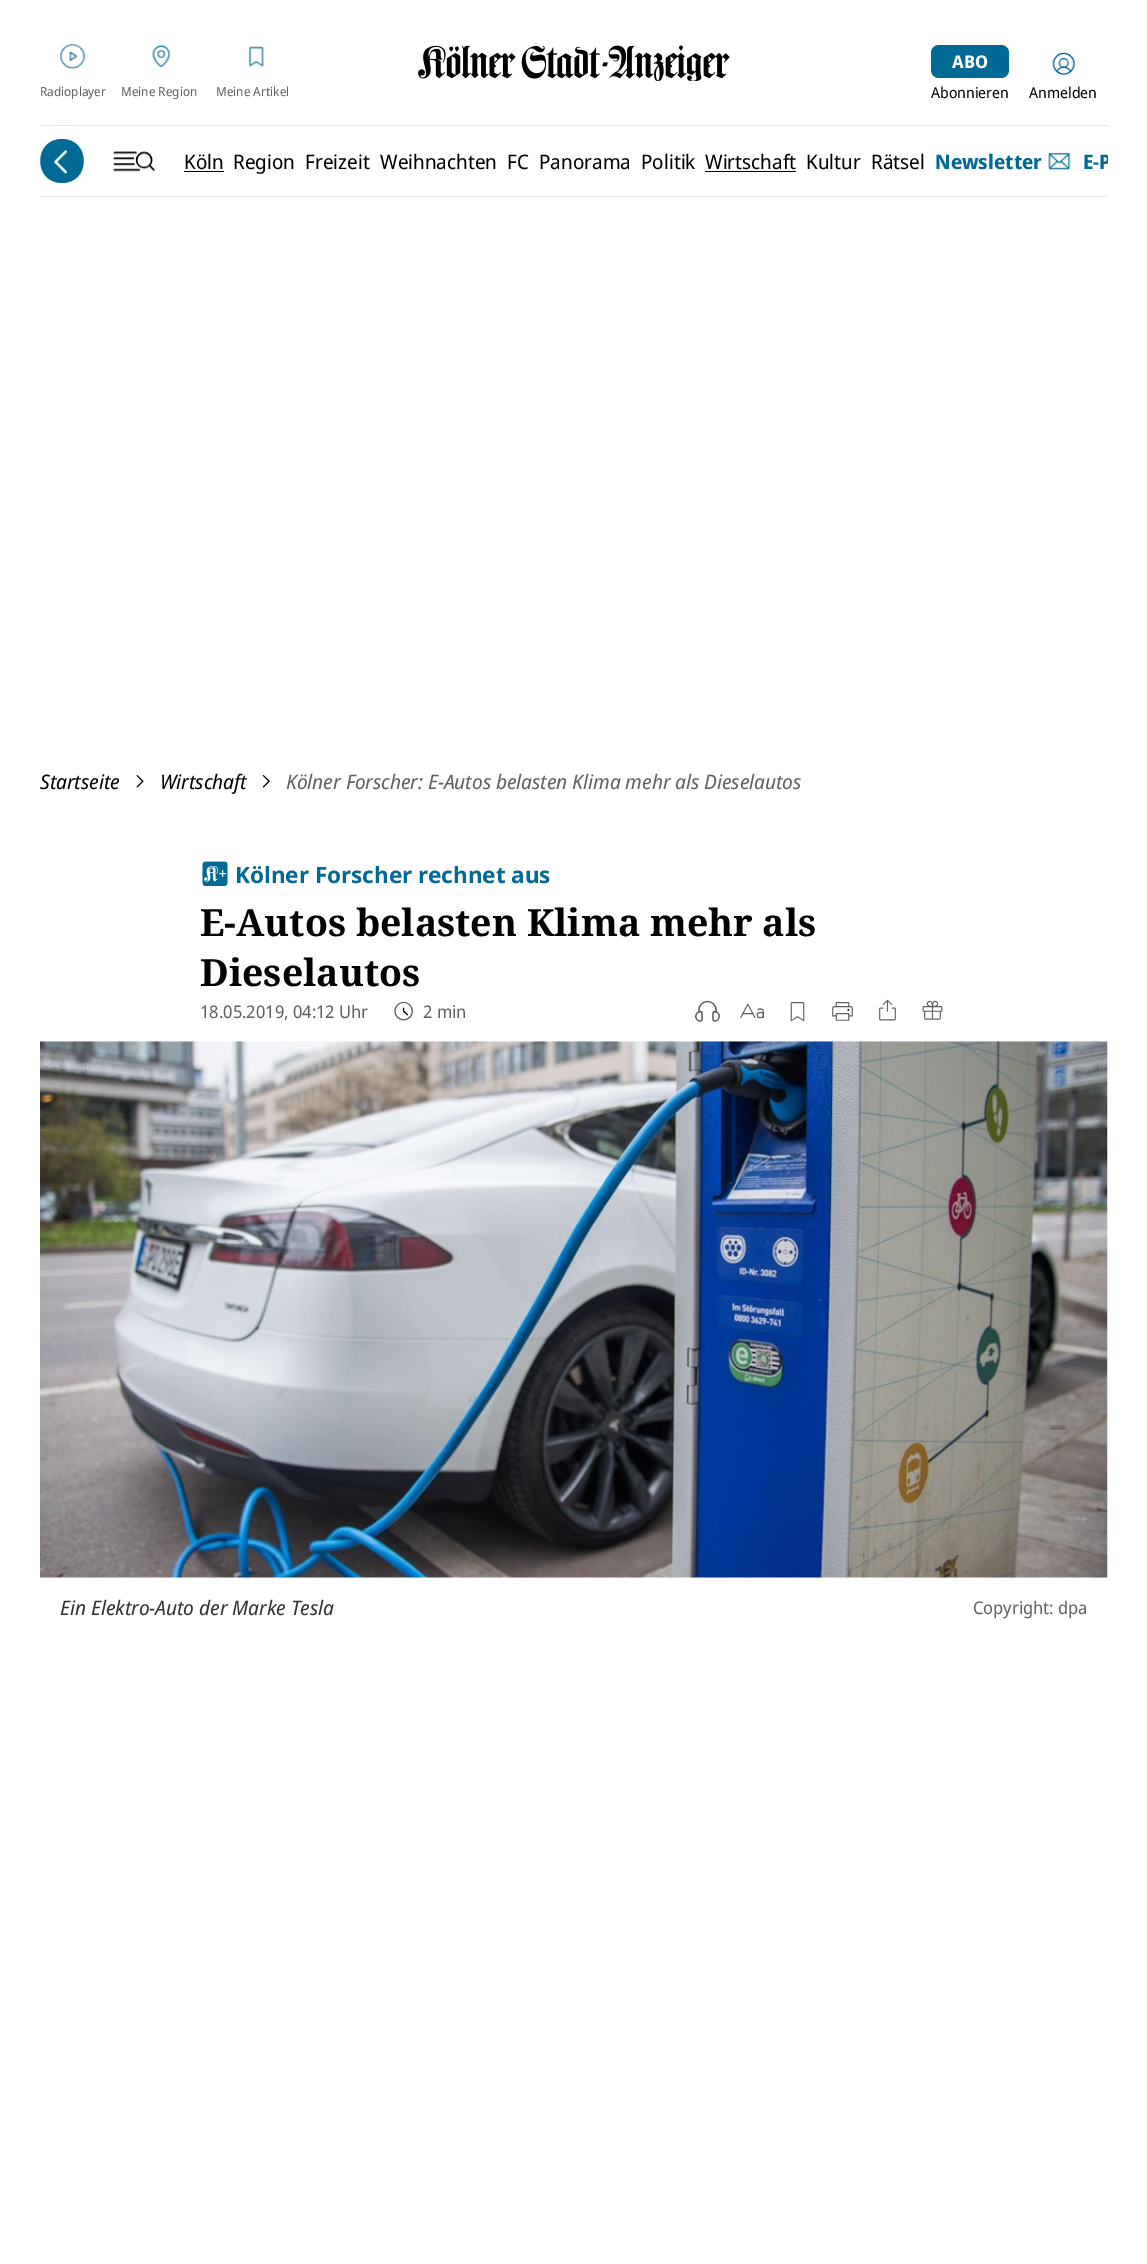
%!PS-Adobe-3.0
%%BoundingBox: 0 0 1147 2264
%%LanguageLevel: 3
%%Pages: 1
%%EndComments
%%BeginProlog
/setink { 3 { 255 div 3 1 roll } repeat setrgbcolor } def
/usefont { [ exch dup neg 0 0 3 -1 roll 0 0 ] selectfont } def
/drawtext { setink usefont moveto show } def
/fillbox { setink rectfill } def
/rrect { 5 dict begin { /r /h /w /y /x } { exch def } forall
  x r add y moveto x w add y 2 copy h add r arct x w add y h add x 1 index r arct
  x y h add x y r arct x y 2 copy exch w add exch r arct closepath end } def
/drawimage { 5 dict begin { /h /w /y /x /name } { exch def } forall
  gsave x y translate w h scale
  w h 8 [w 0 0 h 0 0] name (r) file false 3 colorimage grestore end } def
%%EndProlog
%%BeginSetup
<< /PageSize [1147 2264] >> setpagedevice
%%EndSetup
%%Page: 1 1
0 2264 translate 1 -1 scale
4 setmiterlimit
0 0 1147 2264 255 255 255 fillbox
(assets/img1.rgb) 59 43 26 26 drawimage
(Radioplayer) 40 96 /NotoSansDisplay-Regular 12.5 96 96 96 drawtext
(assets/img2.rgb) 152 44 19 24 drawimage
(Meine Region) 121 96 /NotoSansDisplay-Regular 12.5 96 96 96 drawtext
(assets/img3.rgb) 248 46 16 21 drawimage
(Meine Artikel) 216 96 /NotoSansDisplay-Regular 12.5 96 96 96 drawtext
(assets/img4.rgb) 418 45 312 36 drawimage
0 105 148 setink
931 45 78 33 8 rrect fill
(ABO) 952 68 /NotoSansDisplay-Bold 17.5 255 255 255 drawtext
(Abonnieren) 931 98 /NotoSansDisplay-Regular 15 0 0 0 drawtext
(assets/img5.rgb) 1052 52 23 23 drawimage
(Anmelden) 1029 98 /NotoSansDisplay-Regular 15 0 0 0 drawtext
40 125 1068 1 230 230 230 fillbox
40 196 1068 1 230 230 230 fillbox
0 105 148 setink
62 183 moveto 33 183 33 139 62 139 curveto 91 139 91 183 62 183 curveto closepath fill
(assets/img6.rgb) 54 150 13 25 drawimage
(assets/img7.rgb) 113 151 42 21 drawimage
(Köln) 184 169 /NotoSansDisplay-Regular 20 0 0 0 drawtext
184 171 40 1 0 0 0 fillbox
(Region) 233 169 /NotoSansDisplay-Regular 20 0 0 0 drawtext
(Freizeit) 305 169 /NotoSansDisplay-Regular 20 0 0 0 drawtext
(Weihnachten) 380 169 /NotoSansDisplay-Regular 20 0 0 0 drawtext
(FC) 507 169 /NotoSansDisplay-Regular 20 0 0 0 drawtext
(Panorama) 539 169 /NotoSansDisplay-Regular 20 0 0 0 drawtext
(Politik) 641 169 /NotoSansDisplay-Regular 20 0 0 0 drawtext
(Wirtschaft) 705 169 /NotoSansDisplay-Regular 20 0 0 0 drawtext
705 171 91 1 0 0 0 fillbox
(Kultur) 806 169 /NotoSansDisplay-Regular 20 0 0 0 drawtext
(Rätsel) 871 169 /NotoSansDisplay-Regular 20 0 0 0 drawtext
(Newsletter) 935 169 /NotoSansDisplay-Bold 20 0 105 148 drawtext
(assets/img8.rgb) 1048 153 23 17 drawimage
gsave
184 130 924 63 rectclip
(E-P) 1083 169 /NotoSansDisplay-Bold 20 0 105 148 drawtext
grestore
(Startseite) 40 789 /NotoSansDisplay-Italic 20 0 0 0 drawtext
(assets/img9.rgb) 136 775 8 13 drawimage
(Wirtschaft) 160 789 /NotoSansDisplay-Italic 20 0 0 0 drawtext
(assets/img10.rgb) 262 775 8 13 drawimage
(Kölner Forscher: E-Autos belasten Klima mehr als Dieselautos) 286 789 /NotoSansDisplay-Italic 20 96 96 96 drawtext
(assets/img11.rgb) 202 861 26 25 drawimage
(Kölner Forscher rechnet aus) 235 883 /NotoSans-Bold 22.5 0 105 148 drawtext
(E-Autos belasten Klima mehr als) 200 936 /NotoSerif-Bold 37.5 0 0 0 drawtext
(Dieselautos) 200 986 /NotoSerif-Bold 37.5 0 0 0 drawtext
(18.05.2019, 04:12 Uhr) 200 1018 /NotoSansDisplay-Regular 17.5 96 96 96 drawtext
(assets/img12.rgb) 394 1001 19 20 drawimage
(2 min) 423 1018 /NotoSansDisplay-Regular 17.5 96 96 96 drawtext
(assets/img13.rgb) 695 1000 25 22 drawimage
(assets/img14.rgb) 740 1003 24 16 drawimage
(assets/img15.rgb) 790 1002 15 20 drawimage
(assets/img16.rgb) 832 1002 21 19 drawimage
(assets/img17.rgb) 879 999 17 22 drawimage
(assets/img18.rgb) 922 1000 21 20 drawimage
(assets/img19.rgb) 40 1041 1068 537 drawimage
(Ein Elektro-Auto der Marke Tesla) 60 1615 /NotoSansDisplay-Italic 20 51 51 51 drawtext
(Copyright: dpa) 973 1614 /NotoSansDisplay-Regular 17.5 96 96 96 drawtext
showpage
%%EOF
